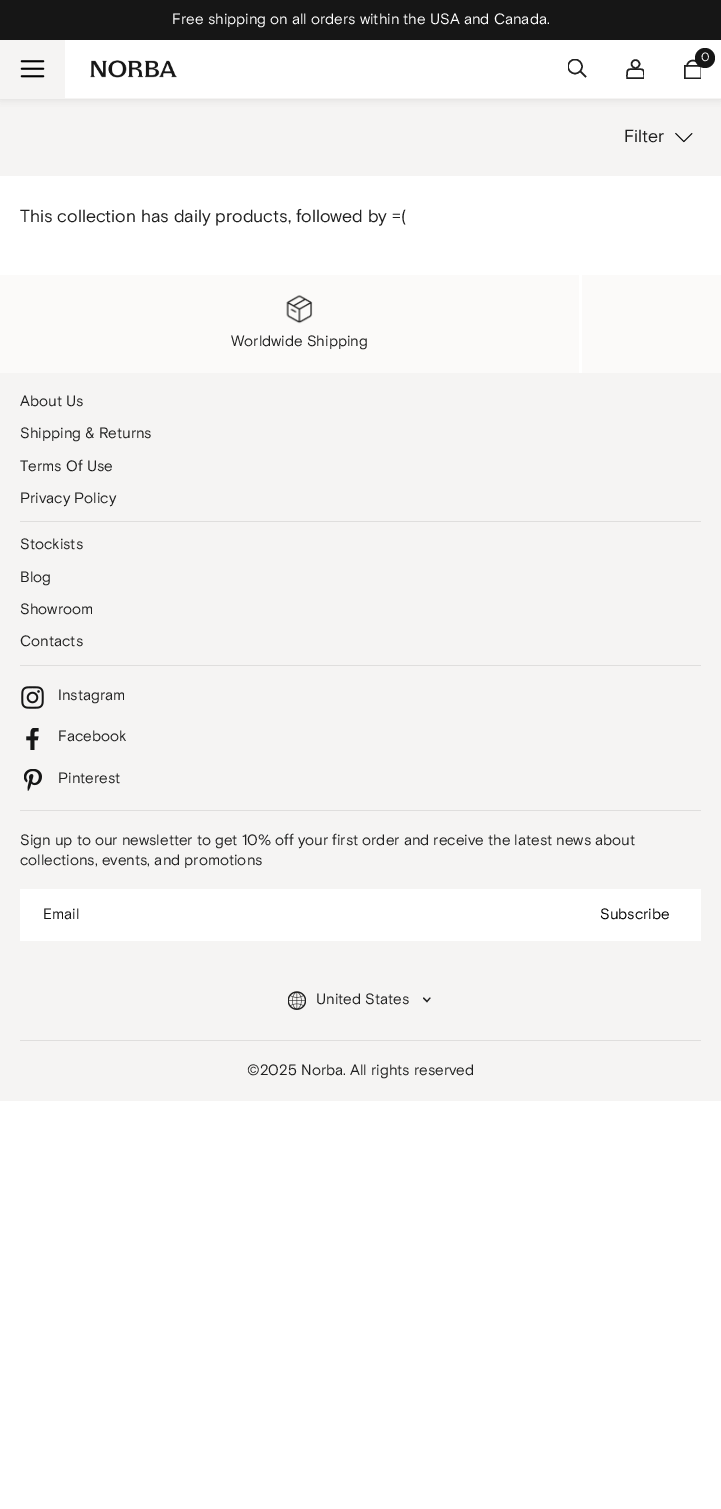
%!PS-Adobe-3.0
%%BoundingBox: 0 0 721 1509
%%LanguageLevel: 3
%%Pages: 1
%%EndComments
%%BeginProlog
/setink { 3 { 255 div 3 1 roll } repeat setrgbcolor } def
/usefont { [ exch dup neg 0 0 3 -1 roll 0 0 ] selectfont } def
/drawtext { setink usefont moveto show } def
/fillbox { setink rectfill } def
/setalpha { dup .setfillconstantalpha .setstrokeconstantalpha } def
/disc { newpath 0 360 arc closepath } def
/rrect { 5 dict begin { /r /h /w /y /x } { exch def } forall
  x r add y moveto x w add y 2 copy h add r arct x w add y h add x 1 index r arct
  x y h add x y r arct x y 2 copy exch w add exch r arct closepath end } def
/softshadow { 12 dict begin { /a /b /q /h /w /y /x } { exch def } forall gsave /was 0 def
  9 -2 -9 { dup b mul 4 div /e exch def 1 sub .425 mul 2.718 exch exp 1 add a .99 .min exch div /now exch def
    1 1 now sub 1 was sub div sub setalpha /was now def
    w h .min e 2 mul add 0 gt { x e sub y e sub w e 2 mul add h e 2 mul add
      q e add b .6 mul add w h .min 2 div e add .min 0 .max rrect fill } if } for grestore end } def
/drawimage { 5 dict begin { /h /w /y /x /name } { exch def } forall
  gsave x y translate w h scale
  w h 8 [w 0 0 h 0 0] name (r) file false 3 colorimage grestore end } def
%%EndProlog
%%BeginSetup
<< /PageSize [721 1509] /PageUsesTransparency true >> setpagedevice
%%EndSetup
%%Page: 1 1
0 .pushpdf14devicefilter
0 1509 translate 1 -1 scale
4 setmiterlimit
0 0 721 1509 255 255 255 fillbox
0 0 721 40 22 22 22 fillbox
(Free shipping on all orders within the USA and Canada.) 172 24 /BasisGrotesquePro-Regular 15 255 255 255 drawtext
0 99 721 77 245 244 243 fillbox
22 22 22 setink
0 40 721 59 0 4.5 0.05 softshadow
0 40 721 59 0 4.5 0.05 softshadow
65 40 656 58 255 255 255 fillbox
0 98 721 1 245 244 243 fillbox
0 40 65 58 245 244 243 fillbox
(assets/img1.rgb) 20 60 25 18 drawimage
gsave
684 59 17 20 rectclip
32 32 32 setink
1.5 setlinewidth
684.75 65.75 16.5 12.5 rectstroke
grestore
32 32 32 setink
1.5 setlinewidth
687 66.5 moveto 687 58.5 699 58.5 699 66.5 curveto stroke
22 22 22 setink
705 58 10 disc fill
(0) 701 61 /BasisGrotesquePro-Regular 12 255 255 255 drawtext
gsave
568 59 20 20 rectclip
32 32 32 setink
575 66.5 7 disc stroke
grestore
32 32 32 setink
580 71 moveto 586 77 lineto stroke
635.5 64 4 disc stroke
gsave
626 59 18 20 rectclip
627 78 moveto 627 69 626.5 69 635.5 69 curveto 644.5 69 644 69 644 78 curveto closepath stroke
grestore
(assets/img2.rgb) 90 60 87 18 drawimage
(Filter) 624 142 /BasisGrotesquePro-Regular 17.5 32 32 32 drawtext
(assets/img3.rgb) 675 132 18 11 drawimage
(This collection has daily products, followed by =\() 20 222 /BasisGrotesquePro-Regular 17.5 32 32 32 drawtext
0 275 721 98 251 250 249 fillbox
(assets/img4.rgb) 286 295 27 29 drawimage
(Worldwide Shipping) 231 346 /BasisGrotesquePro-Regular 15 32 32 32 drawtext
579 275 3 98 255 255 255 fillbox
0 373 721 728 245 244 243 fillbox
20 521 681 1 223 222 221 fillbox
(About Us) 20 406 /BasisGrotesquePro-Regular 15 32 32 32 drawtext
(Shipping & Returns) 20 438 /BasisGrotesquePro-Regular 15 32 32 32 drawtext
(Terms Of Use) 20 471 /BasisGrotesquePro-Regular 15 32 32 32 drawtext
(Privacy Policy) 20 503 /BasisGrotesquePro-Regular 15 32 32 32 drawtext
20 665 681 1 223 222 221 fillbox
(Stockists) 20 549 /BasisGrotesquePro-Regular 15 32 32 32 drawtext
(Blog) 20 582 /BasisGrotesquePro-Regular 15 32 32 32 drawtext
(Showroom) 20 614 /BasisGrotesquePro-Regular 15 32 32 32 drawtext
(Contacts) 20 646 /BasisGrotesquePro-Regular 15 32 32 32 drawtext
20 810 681 1 223 222 221 fillbox
(assets/img5.rgb) 21 686 23 23 drawimage
(Instagram) 58 700 /BasisGrotesquePro-Regular 15 32 32 32 drawtext
(assets/img6.rgb) 26 728 13 22 drawimage
(Facebook) 58 741 /BasisGrotesquePro-Regular 15 32 32 32 drawtext
(assets/img7.rgb) 24 769 18 22 drawimage
(Pinterest) 58 783 /BasisGrotesquePro-Regular 15 32 32 32 drawtext
(Sign up to our newsletter to get 10% off your first order and receive the latest news about) 20 845 /BasisGrotesquePro-Regular 15 32 32 32 drawtext
(collections, events, and promotions) 20 865 /BasisGrotesquePro-Regular 15 32 32 32 drawtext
20 889 681 52 255 255 255 fillbox
(Email) 43 919 /BasisGrotesquePro-Regular 15 22 22 22 drawtext
(Subscribe) 600 919 /BasisGrotesquePro-Regular 15 0 0 0 drawtext
(assets/img8.rgb) 288 991 18 19 drawimage
(United States) 316 1004 /BasisGrotesquePro-Regular 15 32 32 32 drawtext
1.1 setlinewidth
1 setlinecap
430 998 moveto 427 1001.5 lineto 423.5 998 lineto stroke
20 1040 681 1 223 222 221 fillbox
(©2025 Norba. All rights reserved) 247 1075 /BasisGrotesquePro-Regular 15 32 32 32 drawtext
.poppdf14devicefilter showpage
%%EOF
